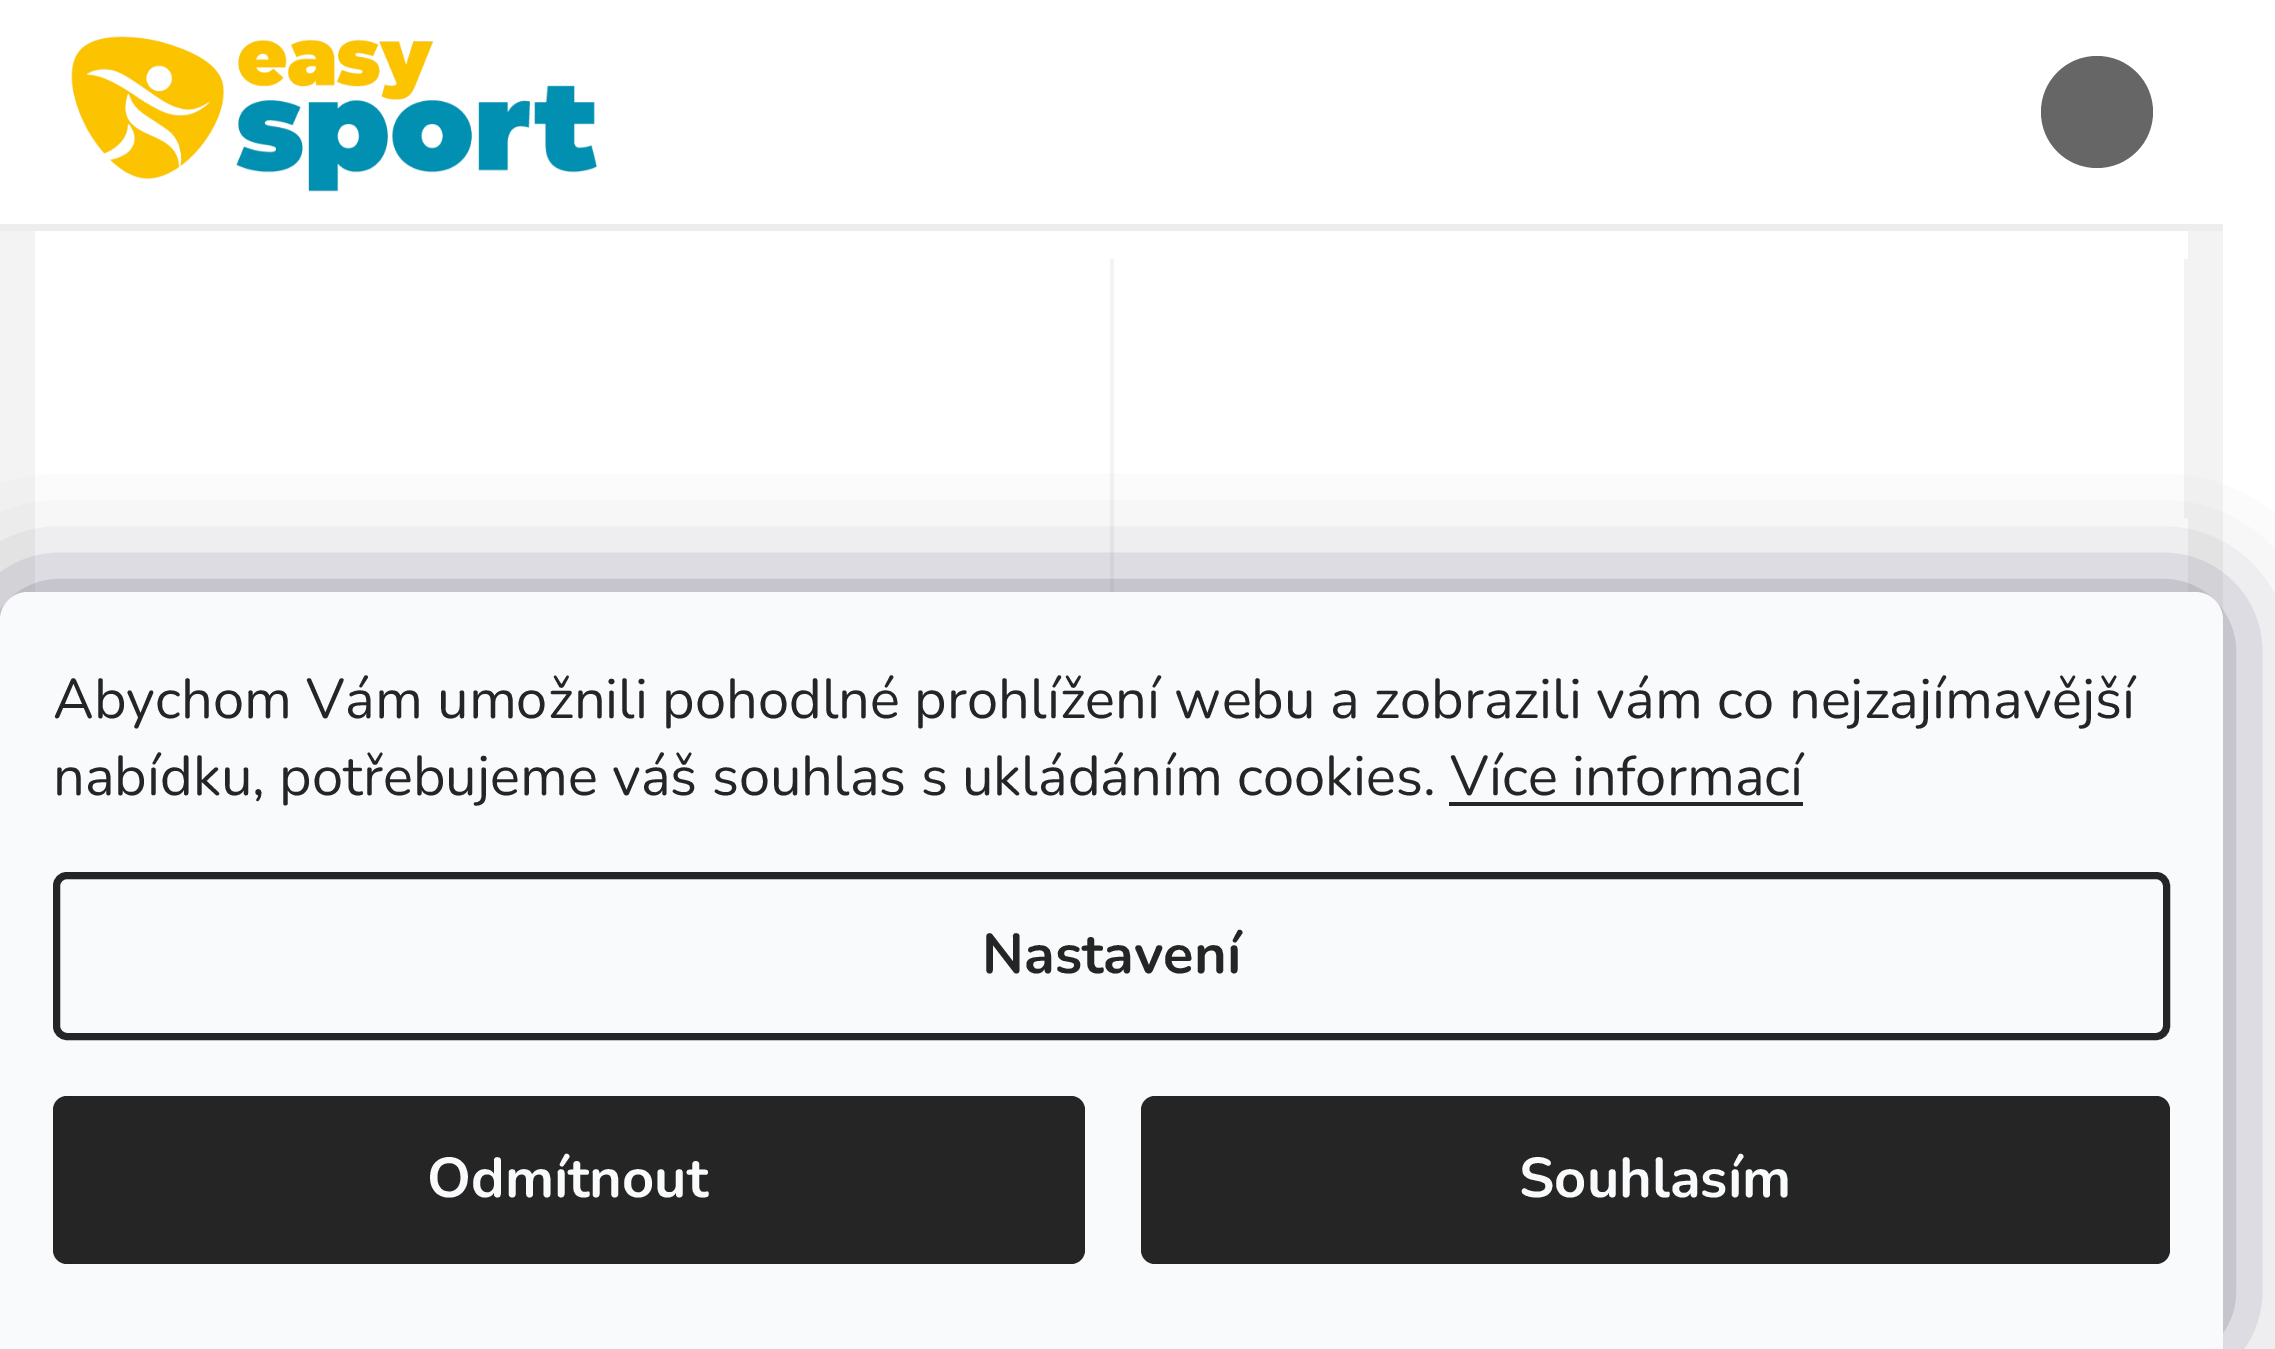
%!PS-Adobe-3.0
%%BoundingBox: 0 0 2275 1349
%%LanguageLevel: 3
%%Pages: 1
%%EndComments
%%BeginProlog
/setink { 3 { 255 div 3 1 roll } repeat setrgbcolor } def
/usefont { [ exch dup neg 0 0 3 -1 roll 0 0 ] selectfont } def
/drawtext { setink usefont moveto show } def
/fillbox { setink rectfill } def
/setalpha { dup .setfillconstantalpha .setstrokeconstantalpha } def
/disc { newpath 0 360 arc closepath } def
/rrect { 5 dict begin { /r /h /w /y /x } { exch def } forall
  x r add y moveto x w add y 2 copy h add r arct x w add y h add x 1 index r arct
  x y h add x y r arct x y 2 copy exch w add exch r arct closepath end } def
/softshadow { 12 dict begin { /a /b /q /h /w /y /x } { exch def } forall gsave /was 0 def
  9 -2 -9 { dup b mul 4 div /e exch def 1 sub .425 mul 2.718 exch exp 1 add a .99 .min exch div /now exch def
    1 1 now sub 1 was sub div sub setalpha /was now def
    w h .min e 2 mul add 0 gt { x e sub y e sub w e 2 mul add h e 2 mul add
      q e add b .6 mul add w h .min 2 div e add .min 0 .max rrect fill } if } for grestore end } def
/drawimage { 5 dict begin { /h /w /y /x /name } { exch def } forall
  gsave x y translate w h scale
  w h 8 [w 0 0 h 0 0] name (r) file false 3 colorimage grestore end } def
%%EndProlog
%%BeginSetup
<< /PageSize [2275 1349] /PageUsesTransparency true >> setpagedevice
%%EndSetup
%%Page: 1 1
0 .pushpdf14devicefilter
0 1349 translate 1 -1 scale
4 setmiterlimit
0 0 2275 1349 255 255 255 fillbox
0 231 2223 389 243 243 243 fillbox
0 224 2223 7 237 237 237 fillbox
(assets/img1.rgb) 71 36 526 156 drawimage
102 102 102 setink
2097 112 56 disc fill
35 231 2153 361 255 255 255 fillbox
1110 259 4 333 243 243 243 fillbox
2184 259 4 259 243 243 243 fillbox
27 25 57 setink
0 592 2223 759 28 52.5 0.5 softshadow
248 250 251 setink
28 592 moveto 2195 592 lineto 2210.5 592 2223 604.5 2223 620 curveto 2223 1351 lineto 0 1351 lineto 0 620 lineto 0 604.5 12.5 592 28 592 curveto closepath fill
(Abychom Vám umožnili pohodlné prohlížení webu a zobrazili vám co nejzajímavější) 53 718 /Nunito-Regular 56 37 37 37 drawtext
(nabídku, potřebujeme váš souhlas s ukládáním cookies. Více informací) 53 795 /Nunito-Regular 56 37 37 37 drawtext
1449 802 354 4 37 37 37 fillbox
7 setlinewidth
56.5 875.5 2110 161 10.5 rrect stroke
(Nastavení) 982 973 /Nunito-Bold 56 37 37 37 drawtext
53 1096 1032 168 14 rrect fill
(Odmítnout) 427 1197 /Nunito-Bold 56 248 250 251 drawtext
37 37 37 setink
1141 1096 1029 168 14 rrect fill
(Souhlasím) 1519 1197 /Nunito-Bold 56 248 250 251 drawtext
.poppdf14devicefilter showpage
%%EOF
